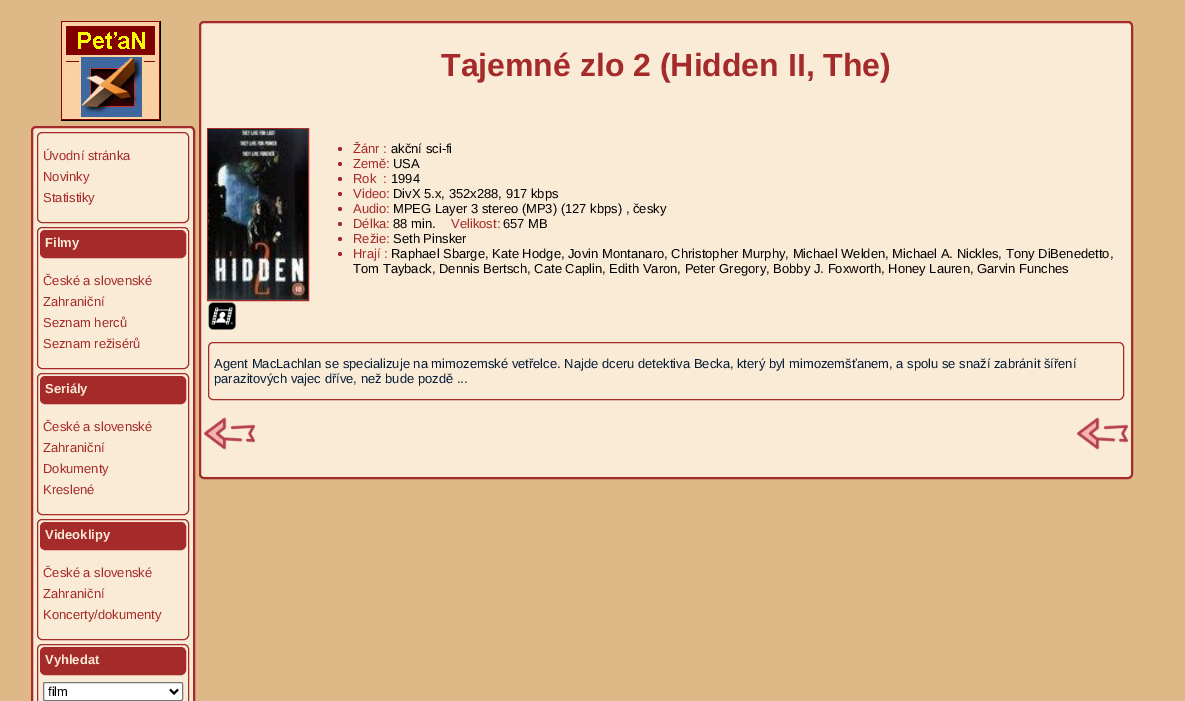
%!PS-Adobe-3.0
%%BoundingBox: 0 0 1185 701
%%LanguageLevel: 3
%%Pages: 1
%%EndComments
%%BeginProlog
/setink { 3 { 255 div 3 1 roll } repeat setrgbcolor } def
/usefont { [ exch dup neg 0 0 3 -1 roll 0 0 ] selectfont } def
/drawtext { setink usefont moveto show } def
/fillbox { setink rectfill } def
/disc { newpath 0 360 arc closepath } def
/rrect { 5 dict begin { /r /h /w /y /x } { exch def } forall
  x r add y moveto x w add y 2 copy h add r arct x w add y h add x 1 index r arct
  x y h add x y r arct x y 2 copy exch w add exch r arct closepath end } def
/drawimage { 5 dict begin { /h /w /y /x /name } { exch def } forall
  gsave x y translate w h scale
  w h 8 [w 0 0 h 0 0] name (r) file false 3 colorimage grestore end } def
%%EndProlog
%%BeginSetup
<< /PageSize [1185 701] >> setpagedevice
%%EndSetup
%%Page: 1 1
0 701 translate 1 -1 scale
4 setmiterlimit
0 0 1185 701 222 184 135 fillbox
(assets/img1.rgb) 61 21 100 100 drawimage
250 235 215 setink
32 127 162 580 4 rrect gsave fill grestore
165 42 42 setink
2 setlinewidth
stroke
1 setlinewidth
37.5 132.5 151 90 4.5 rrect stroke
(Úvodní stránka) 43 160 /LiberationSans-Regular 13 165 42 42 drawtext
(Novinky) 43 181 /LiberationSans-Regular 13 165 42 42 drawtext
(Statistiky) 43 202 /LiberationSans-Regular 13 165 42 42 drawtext
37.5 227.5 151 141 4.5 rrect stroke
40.5 230.5 145 27 4.5 rrect gsave fill grestore
stroke
(Filmy) 45 247 /LiberationSans-Bold 13 250 235 215 drawtext
(České a slovenské) 43 285 /LiberationSans-Regular 13 165 42 42 drawtext
(Zahraniční) 43 306 /LiberationSans-Regular 13 165 42 42 drawtext
(Seznam herců) 43 327 /LiberationSans-Regular 13 165 42 42 drawtext
(Seznam režisérů) 43 348 /LiberationSans-Regular 13 165 42 42 drawtext
37.5 373.5 151 141 4.5 rrect stroke
40.5 376.5 145 27 4.5 rrect gsave fill grestore
stroke
(Seriály) 45 393 /LiberationSans-Bold 13 250 235 215 drawtext
(České a slovenské) 43 431 /LiberationSans-Regular 13 165 42 42 drawtext
(Zahraniční) 43 452 /LiberationSans-Regular 13 165 42 42 drawtext
(Dokumenty) 43 473 /LiberationSans-Regular 13 165 42 42 drawtext
(Kreslené) 43 494 /LiberationSans-Regular 13 165 42 42 drawtext
37.5 519.5 151 120 4.5 rrect stroke
40.5 522.5 145 27 4.5 rrect gsave fill grestore
stroke
(Videoklipy) 45 539 /LiberationSans-Bold 13 250 235 215 drawtext
(České a slovenské) 43 577 /LiberationSans-Regular 13 165 42 42 drawtext
(Zahraniční) 43 598 /LiberationSans-Regular 13 165 42 42 drawtext
(Koncerty/dokumenty) 43 619 /LiberationSans-Regular 13 165 42 42 drawtext
37.5 644.5 151 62 4.5 rrect stroke
40.5 647.5 145 27 4.5 rrect gsave fill grestore
stroke
(Vyhledat) 45 664 /LiberationSans-Bold 13 250 235 215 drawtext
255 255 255 setink
43.5 682.5 139 18 1.5 rrect gsave fill grestore
118 118 118 setink
stroke
0 0 0 setink
2 setlinewidth
170 689.5 moveto 174 693.5 lineto 178 689.5 lineto stroke
(film) 48 696 /LiberationSans-Regular 13 0 0 0 drawtext
250 235 215 setink
200 22 932 456 4 rrect gsave fill grestore
165 42 42 setink
stroke
(Tajemné zlo 2 \(Hidden II, The\)) 441 76 /LiberationSans-Bold 32 165 42 42 drawtext
1 setlinewidth
207.5 128.5 101 172 rectstroke
(assets/img2.rgb) 208 129 100 171 drawimage
(assets/img3.rgb) 208 302 29 28 drawimage
340 149 2 disc fill
(Žánr :) 353 153 /LiberationSans-Regular 13 165 42 42 drawtext
(akční sci-fi) 391 153 /LiberationSans-Regular 13 0 0 0 drawtext
165 42 42 setink
340 164 2 disc fill
(Země:) 353 168 /LiberationSans-Regular 13 165 42 42 drawtext
(USA) 393 168 /LiberationSans-Regular 13 0 0 0 drawtext
165 42 42 setink
340 179 2 disc fill
(Rok  :) 353 183 /LiberationSans-Regular 13 165 42 42 drawtext
(1994) 391 183 /LiberationSans-Regular 13 0 0 0 drawtext
165 42 42 setink
340 194 2 disc fill
(Video:) 353 198 /LiberationSans-Regular 13 165 42 42 drawtext
(DivX 5.x, 352x288, 917 kbps) 393 198 /LiberationSans-Regular 13 0 0 0 drawtext
165 42 42 setink
340 209 2 disc fill
(Audio:) 353 213 /LiberationSans-Regular 13 165 42 42 drawtext
(MPEG Layer 3 stereo \(MP3\) \(127 kbps\) , česky) 393 213 /LiberationSans-Regular 13 0 0 0 drawtext
165 42 42 setink
340 224 2 disc fill
(Délka:) 353 228 /LiberationSans-Regular 13 165 42 42 drawtext
(88 min.) 393 228 /LiberationSans-Regular 13 0 0 0 drawtext
(Velikost:) 451 228 /LiberationSans-Regular 13 165 42 42 drawtext
(657 MB) 503 228 /LiberationSans-Regular 13 0 0 0 drawtext
165 42 42 setink
340 239 2 disc fill
(Režie:) 353 243 /LiberationSans-Regular 13 165 42 42 drawtext
(Seth Pinsker) 393 243 /LiberationSans-Regular 13 0 0 0 drawtext
165 42 42 setink
340 254 2 disc fill
(Hrají :) 353 258 /LiberationSans-Regular 13 165 42 42 drawtext
(Raphael Sbarge, Kate Hodge, Jovin Montanaro, Christopher Murphy, Michael Welden, Michael A. Nickles, Tony DiBenedetto,) 391 258 /LiberationSans-Regular 13 0 0 0 drawtext
(Tom Tayback, Dennis Bertsch, Cate Caplin, Edith Varon, Peter Gregory, Bobby J. Foxworth, Honey Lauren, Garvin Funches) 353 273 /LiberationSans-Regular 13 0 0 0 drawtext
165 42 42 setink
208.5 342.5 915 57 4.5 rrect stroke
(Agent MacLachlan se specializuje na mimozemské vetřelce. Najde dceru detektiva Becka, který byl mimozemšťanem, a spolu se snaží zabránit šíření) 214 368 /LiberationSans-Regular 13 6 28 55 drawtext
(parazitových vajec dříve, než bude pozdě ...) 214 383 /LiberationSans-Regular 13 6 28 55 drawtext
(assets/img4.rgb) 204 417 51 33 drawimage
(assets/img4.rgb) 1077 417 51 33 drawimage
showpage
%%EOF
